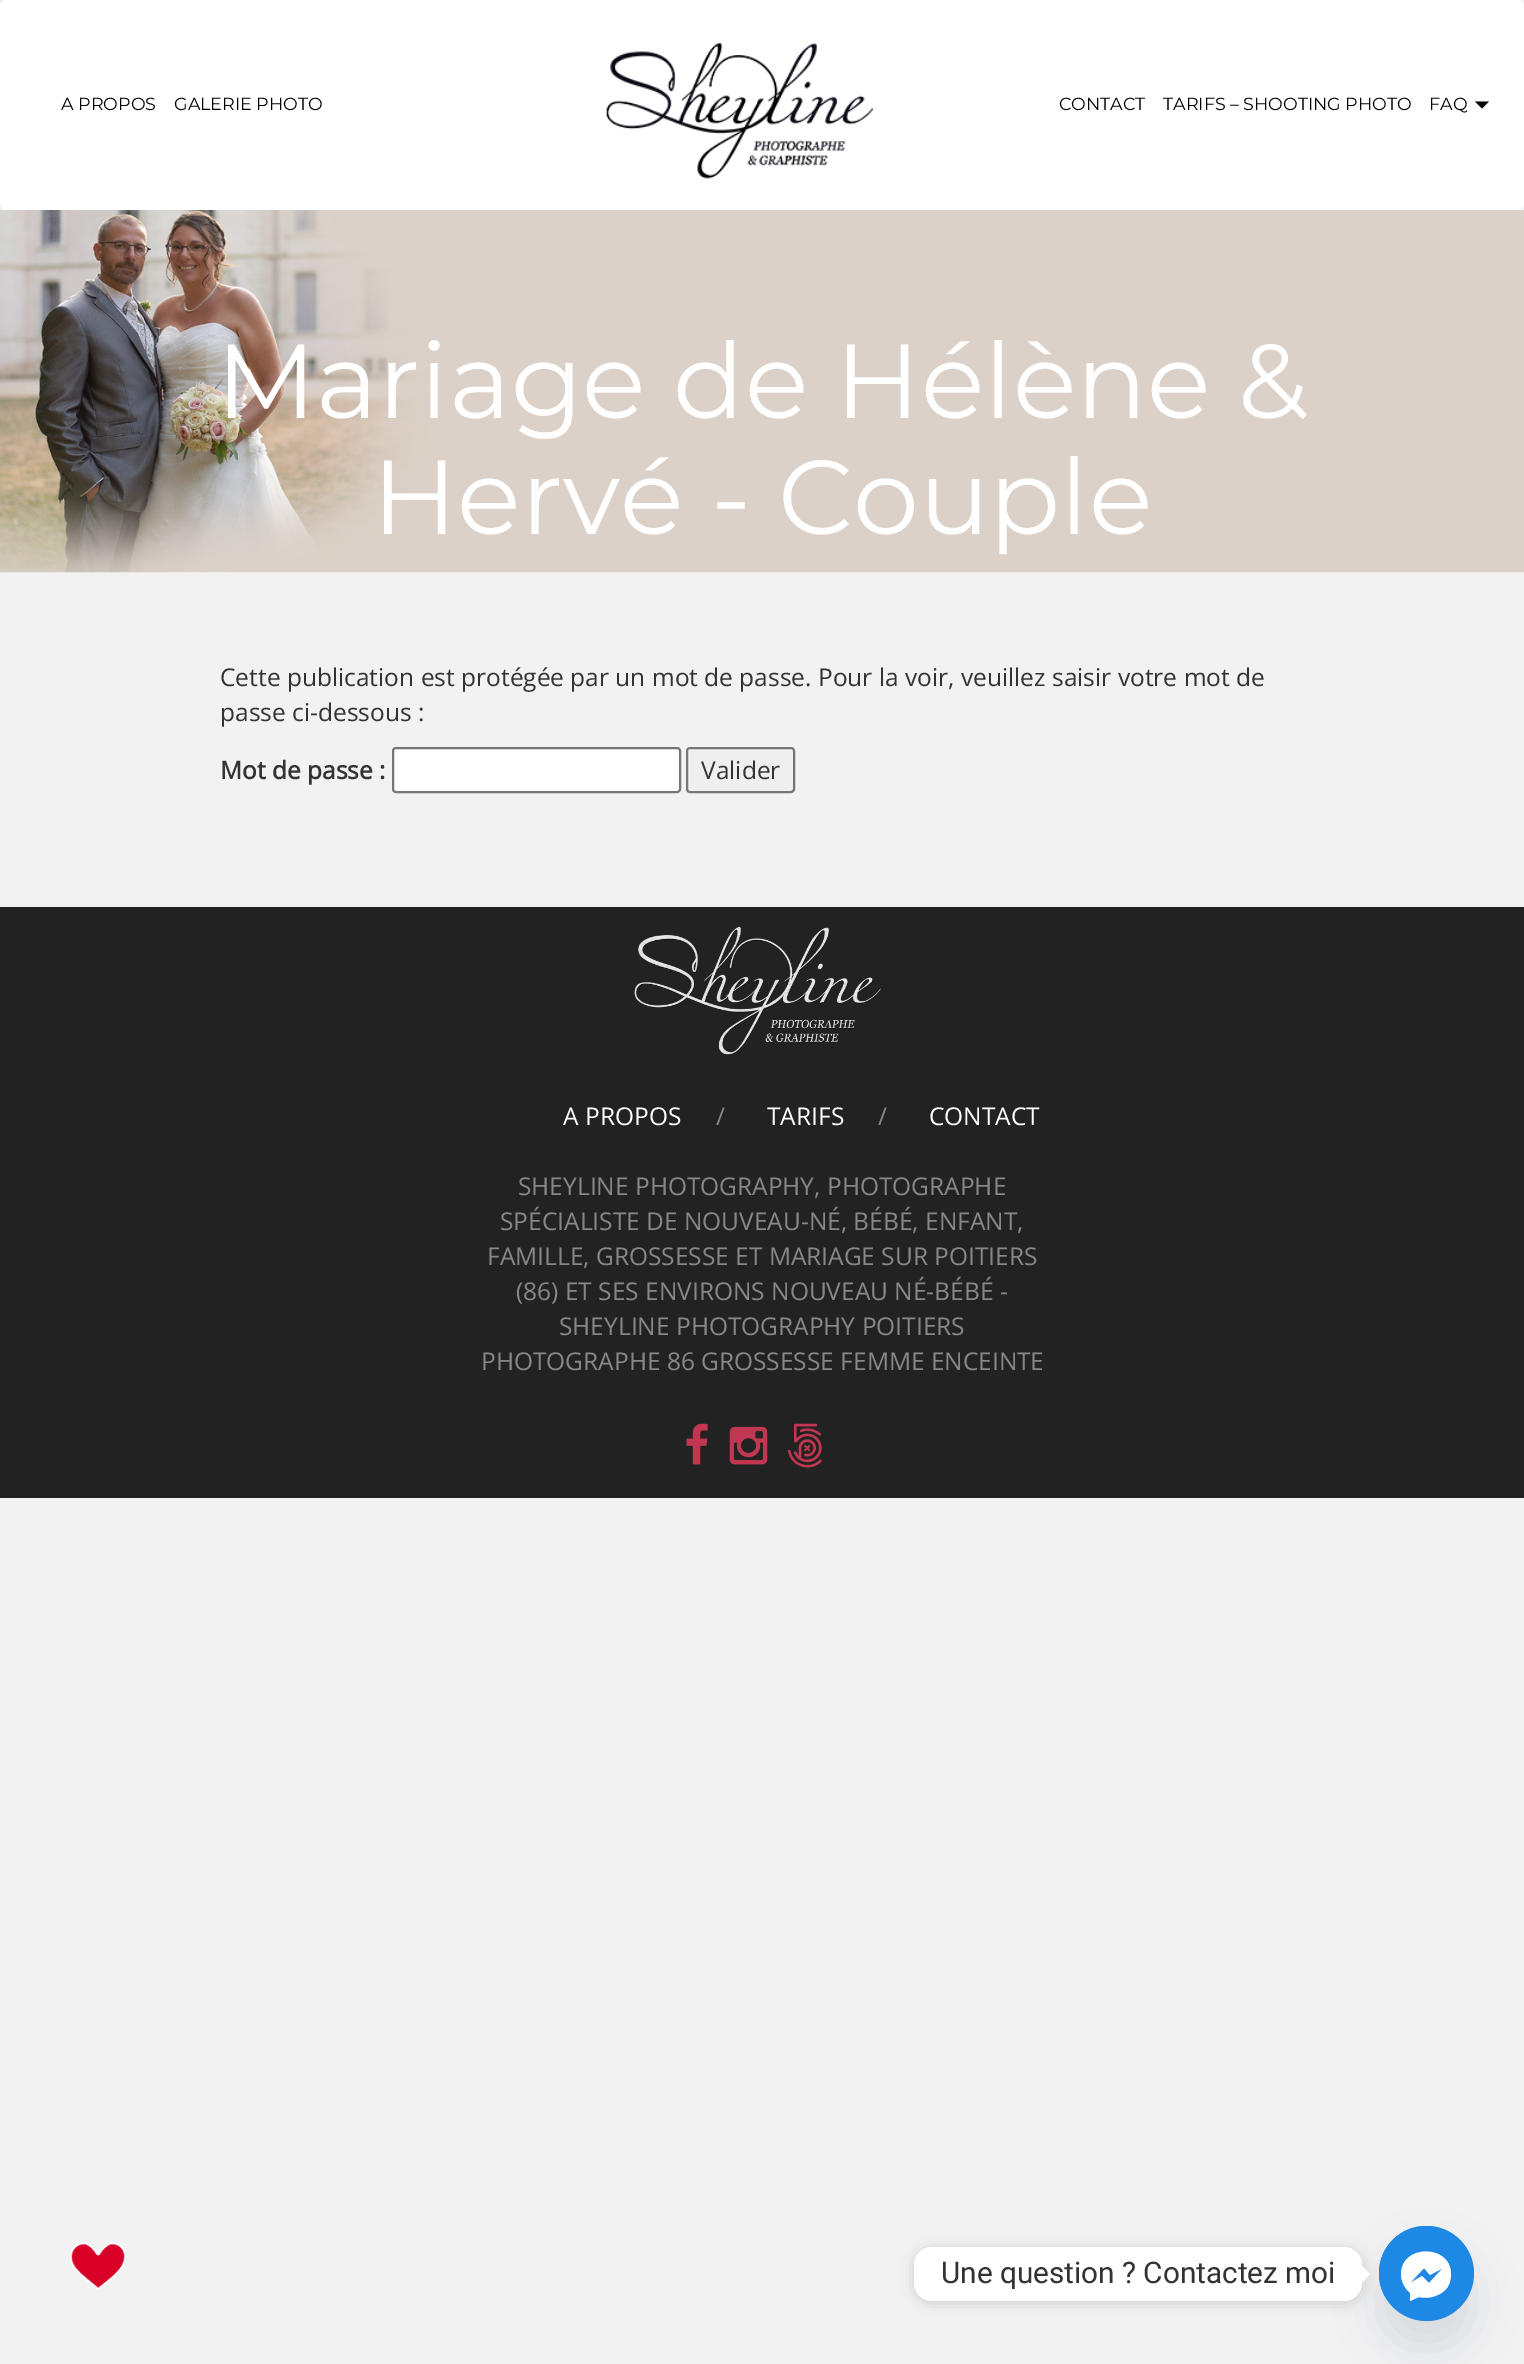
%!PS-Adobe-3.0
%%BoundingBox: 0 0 1524 2364
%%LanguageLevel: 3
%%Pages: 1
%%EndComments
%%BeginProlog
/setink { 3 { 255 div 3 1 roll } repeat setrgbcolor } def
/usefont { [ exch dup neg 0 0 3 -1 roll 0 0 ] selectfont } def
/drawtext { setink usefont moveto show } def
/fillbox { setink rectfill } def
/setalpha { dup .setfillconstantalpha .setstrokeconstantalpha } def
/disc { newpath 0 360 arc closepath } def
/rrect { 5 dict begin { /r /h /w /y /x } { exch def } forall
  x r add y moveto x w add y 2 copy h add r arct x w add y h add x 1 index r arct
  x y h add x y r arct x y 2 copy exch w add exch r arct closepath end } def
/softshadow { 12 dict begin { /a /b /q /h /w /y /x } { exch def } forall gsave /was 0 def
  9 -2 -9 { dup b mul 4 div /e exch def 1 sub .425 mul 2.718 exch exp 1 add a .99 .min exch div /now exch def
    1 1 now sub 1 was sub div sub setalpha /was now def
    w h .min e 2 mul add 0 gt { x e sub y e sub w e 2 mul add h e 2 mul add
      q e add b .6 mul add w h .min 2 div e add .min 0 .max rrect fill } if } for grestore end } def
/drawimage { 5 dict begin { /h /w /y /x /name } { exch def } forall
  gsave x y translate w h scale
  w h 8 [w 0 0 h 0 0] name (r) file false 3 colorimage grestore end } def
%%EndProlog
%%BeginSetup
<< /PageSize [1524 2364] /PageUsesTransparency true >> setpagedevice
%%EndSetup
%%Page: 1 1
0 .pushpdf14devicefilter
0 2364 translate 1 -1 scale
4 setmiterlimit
0 0 1524 2364 242 242 242 fillbox
255 255 255 setink
0 0 1524 210 7 rrect fill
(assets/img1.rgb) 606 43 267 136 drawimage
(A PROPOS) 61 110 /Montserrat-Thin 17.5 0 0 0 drawtext
(GALERIE PHOTO) 174 110 /Montserrat-Thin 17.5 0 0 0 drawtext
(CONTACT) 1059 110 /Montserrat-Thin 17.5 0 0 0 drawtext
(TARIFS – SHOOTING PHOTO) 1163 110 /Montserrat-Thin 17.5 0 0 0 drawtext
(FAQ) 1429 110 /Montserrat-Thin 17.5 0 0 0 drawtext
1475 101.5 moveto 1489 101.5 lineto 1482 108.5 lineto closepath fill
(assets/img2.rgb) 0 210 1524 363 drawimage
(Mariage de Hélène &) 216 418 /Montserrat-Thin 105 255 255 255 drawtext
(Hervé - Couple) 372 534 /Montserrat-Thin 105 255 255 255 drawtext
(Cette publication est protégée par un mot de passe. Pour la voir, veuillez saisir votre mot de) 220 686 /OpenSans-Regular 24.5 51 51 51 drawtext
(passe ci-dessous :) 220 721 /OpenSans-Regular 24.5 51 51 51 drawtext
(Mot de passe :) 220 779 /OpenSans-Bold 24.5 51 51 51 drawtext
255 255 255 setink
393 748 287 44 3 rrect gsave fill grestore
118 118 118 setink
2 setlinewidth
stroke
239 239 239 setink
687 748 107 44 3 rrect gsave fill grestore
118 118 118 setink
stroke
(Valider) 701 779 /OpenSans-Regular 24.5 51 51 51 drawtext
0 907 1524 591 34 34 34 fillbox
(assets/img3.rgb) 634 926 247 129 drawimage
(A PROPOS) 563 1125 /OpenSans-Regular 24.5 255 255 255 drawtext
(/) 716 1125 /OpenSans-Regular 24.5 136 136 136 drawtext
(TARIFS) 767 1125 /OpenSans-Regular 24.5 255 255 255 drawtext
(/) 878 1125 /OpenSans-Regular 24.5 136 136 136 drawtext
(CONTACT) 929 1125 /OpenSans-Regular 24.5 255 255 255 drawtext
(SHEYLINE PHOTOGRAPHY, PHOTOGRAPHE) 518 1195 /OpenSans-Regular 24.5 136 136 136 drawtext
(SPÉCIALISTE DE NOUVEAU-NÉ, BÉBÉ, ENFANT,) 500 1230 /OpenSans-Regular 24.5 136 136 136 drawtext
(FAMILLE, GROSSESSE ET MARIAGE SUR POITIERS) 487 1265 /OpenSans-Regular 24.5 136 136 136 drawtext
(\(86\) ET SES ENVIRONS NOUVEAU NÉ-BÉBÉ -) 516 1300 /OpenSans-Regular 24.5 136 136 136 drawtext
(SHEYLINE PHOTOGRAPHY POITIERS) 559 1335 /OpenSans-Regular 24.5 136 136 136 drawtext
(PHOTOGRAPHE 86 GROSSESSE FEMME ENCEINTE) 481 1370 /OpenSans-Regular 24.5 136 136 136 drawtext
(assets/img4.rgb) 686 1423 22 42 drawimage
(assets/img5.rgb) 729 1426 39 39 drawimage
(assets/img6.rgb) 787 1423 35 45 drawimage
(assets/img7.rgb) 70 2242 56 48 drawimage
73 104 126 setink
1379 2254 95 95 47.5 21 0.16 softshadow
30 136 229 setink
1426.5 2273.5 47.5 disc fill
1426 2273 47 disc fill
0 0 0 setink
914 2249 448 54 18 7 0.15 softshadow
255 255 255 setink
914 2247 448 54 18 rrect fill
(Une question ? Contactez moi) 941 2283 /Roboto-Regular 29.75 51 51 51 drawtext
255 255 255 setink
1361.5 2283 moveto 1361.5 2265.5 lineto 1370 2274 lineto closepath fill
1401 2274 moveto 1401 2244 1451 2244 1451 2274 curveto 1451 2281 1449 2287 1444 2291 curveto 1437 2297 1427 2299 1419 2297 curveto 1410 2301 lineto 1410 2293 lineto 1405 2288 1401 2282 1401 2274 curveto closepath 1422 2276 moveto 1429 2283 lineto 1443 2268 lineto 1430 2275 lineto 1424 2268 lineto 1410 2283 lineto closepath eofill
.poppdf14devicefilter showpage
%%EOF
